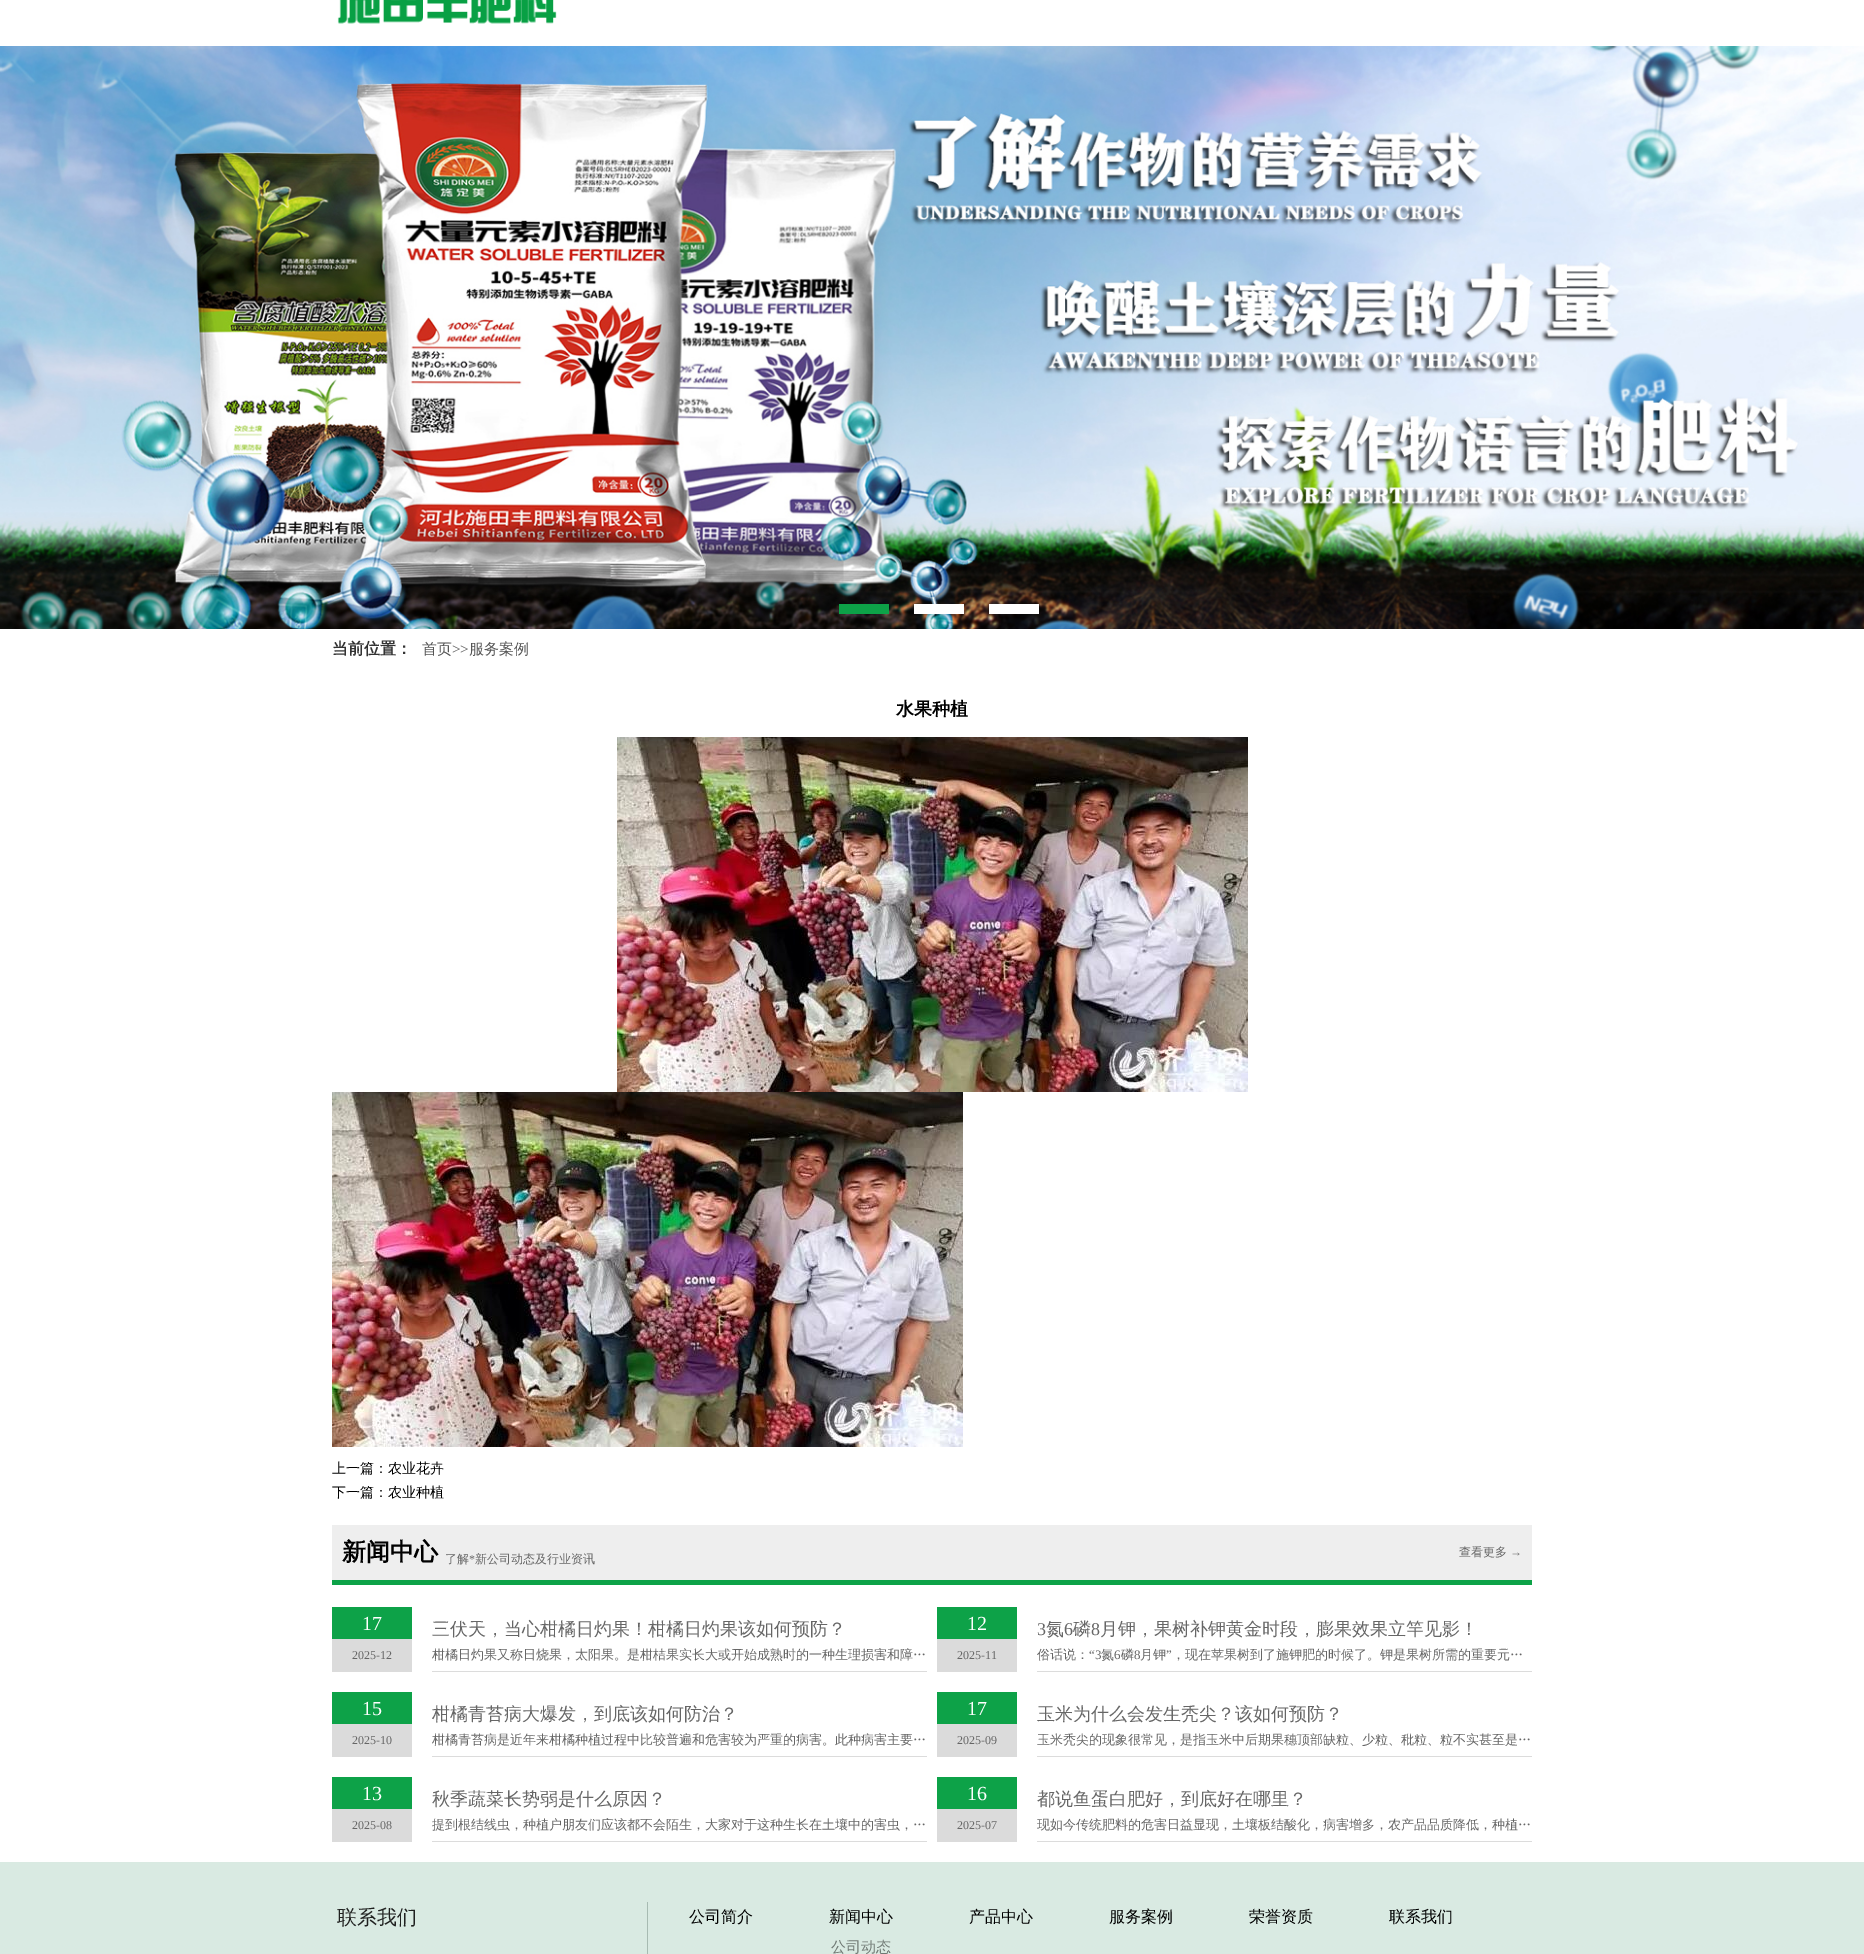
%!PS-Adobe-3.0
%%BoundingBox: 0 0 1864 1954
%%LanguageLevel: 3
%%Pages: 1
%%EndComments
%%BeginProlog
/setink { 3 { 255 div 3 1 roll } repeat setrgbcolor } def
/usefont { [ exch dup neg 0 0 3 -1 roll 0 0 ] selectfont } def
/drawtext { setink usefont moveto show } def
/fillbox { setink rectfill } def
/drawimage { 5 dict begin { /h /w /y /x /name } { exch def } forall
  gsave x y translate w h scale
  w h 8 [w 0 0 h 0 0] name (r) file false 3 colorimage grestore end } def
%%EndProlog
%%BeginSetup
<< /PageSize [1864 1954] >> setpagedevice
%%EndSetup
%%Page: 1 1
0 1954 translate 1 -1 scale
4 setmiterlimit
0 0 1864 1954 255 255 255 fillbox
(assets/img1.rgb) 337 0 220 24 drawimage
(assets/img2.rgb) 0 46 1864 583 drawimage
839 604 50 10 13 162 72 fillbox
914 604 50 10 255 255 255 fillbox
989 604 50 10 255 255 255 fillbox
(当前位置：) 332 654 /WenQuanYiZenHei-Bold 16 51 51 51 drawtext
(首页) 422 654 /WenQuanYiZenHei-Medium 15 85 85 85 drawtext
(>>) 452 654 /LiberationSerif-Regular 15 85 85 85 drawtext
(服务案例) 469 654 /WenQuanYiZenHei-Medium 15 85 85 85 drawtext
(水果种植) 896 715 /WenQuanYiZenHei-Bold 18 0 0 0 drawtext
(assets/img3.rgb) 617 737 631 355 drawimage
(assets/img3.rgb) 332 1092 631 355 drawimage
(上一篇：农业花卉) 332 1473 /WenQuanYiZenHei-Medium 14 0 0 0 drawtext
(下一篇：农业种植) 332 1497 /WenQuanYiZenHei-Medium 14 0 0 0 drawtext
332 1525 1200 55 238 238 238 fillbox
332 1580 1200 5 13 162 72 fillbox
(新闻中心) 342 1560 /WenQuanYiZenHei-Bold 24 0 0 0 drawtext
(了解) 445 1563 /WenQuanYiZenHei-Medium 12 102 102 102 drawtext
(*) 469 1563 /LiberationSerif-Regular 12 102 102 102 drawtext
(新公司动态及行业资讯) 475 1563 /WenQuanYiZenHei-Medium 12 102 102 102 drawtext
(查看更多) 1459 1556 /WenQuanYiZenHei-Medium 12 102 102 102 drawtext
(→) 1510 1556 /LiberationSerif-Regular 12 102 102 102 drawtext
332 1607 80 32 13 162 72 fillbox
(17) 362 1630 /LiberationSerif-Regular 20 255 255 255 drawtext
332 1639 80 33 219 219 219 fillbox
(2025-12) 352 1659 /LiberationSerif-Regular 12 102 102 102 drawtext
432 1671 495 1 220 220 220 fillbox
(三伏天，当心柑橘日灼果！柑橘日灼果该如何预防？) 432 1635 /WenQuanYiZenHei-Medium 18 102 102 102 drawtext
(柑橘日灼果又称日烧果，太阳果。是柑桔果实长大或开始成熟时的一种生理损害和障…) 432 1659 /WenQuanYiZenHei-Medium 13 102 102 102 drawtext
937 1607 80 32 13 162 72 fillbox
(12) 967 1630 /LiberationSerif-Regular 20 255 255 255 drawtext
937 1639 80 33 219 219 219 fillbox
(2025-11) 957 1659 /LiberationSerif-Regular 12 102 102 102 drawtext
1037 1671 495 1 220 220 220 fillbox
(3) 1037 1635 /LiberationSerif-Regular 18 102 102 102 drawtext
(氮) 1046 1635 /WenQuanYiZenHei-Medium 18 102 102 102 drawtext
(6) 1064 1635 /LiberationSerif-Regular 18 102 102 102 drawtext
(磷) 1073 1635 /WenQuanYiZenHei-Medium 18 102 102 102 drawtext
(8) 1091 1635 /LiberationSerif-Regular 18 102 102 102 drawtext
(月钾，果树补钾黄金时段，膨果效果立竿见影！) 1100 1635 /WenQuanYiZenHei-Medium 18 102 102 102 drawtext
(俗话说：) 1037 1659 /WenQuanYiZenHei-Medium 13 102 102 102 drawtext
(“3) 1089 1659 /LiberationSerif-Regular 13 102 102 102 drawtext
(氮) 1101 1659 /WenQuanYiZenHei-Medium 13 102 102 102 drawtext
(6) 1114 1659 /LiberationSerif-Regular 13 102 102 102 drawtext
(磷) 1121 1659 /WenQuanYiZenHei-Medium 13 102 102 102 drawtext
(8) 1134 1659 /LiberationSerif-Regular 13 102 102 102 drawtext
(月钾) 1140 1659 /WenQuanYiZenHei-Medium 13 102 102 102 drawtext
(”) 1166 1659 /LiberationSerif-Regular 13 102 102 102 drawtext
(，现在苹果树到了施钾肥的时候了。钾是果树所需的重要元…) 1172 1659 /WenQuanYiZenHei-Medium 13 102 102 102 drawtext
332 1692 80 32 13 162 72 fillbox
(15) 362 1715 /LiberationSerif-Regular 20 255 255 255 drawtext
332 1724 80 33 219 219 219 fillbox
(2025-10) 352 1744 /LiberationSerif-Regular 12 102 102 102 drawtext
432 1756 495 1 220 220 220 fillbox
(柑橘青苔病大爆发，到底该如何防治？) 432 1720 /WenQuanYiZenHei-Medium 18 102 102 102 drawtext
(柑橘青苔病是近年来柑橘种植过程中比较普遍和危害较为严重的病害。此种病害主要…) 432 1744 /WenQuanYiZenHei-Medium 13 102 102 102 drawtext
937 1692 80 32 13 162 72 fillbox
(17) 967 1715 /LiberationSerif-Regular 20 255 255 255 drawtext
937 1724 80 33 219 219 219 fillbox
(2025-09) 957 1744 /LiberationSerif-Regular 12 102 102 102 drawtext
1037 1756 495 1 220 220 220 fillbox
(玉米为什么会发生秃尖？该如何预防？) 1037 1720 /WenQuanYiZenHei-Medium 18 102 102 102 drawtext
(玉米秃尖的现象很常见，是指玉米中后期果穗顶部缺粒、少粒、秕粒、粒不实甚至是…) 1037 1744 /WenQuanYiZenHei-Medium 13 102 102 102 drawtext
332 1777 80 32 13 162 72 fillbox
(13) 362 1800 /LiberationSerif-Regular 20 255 255 255 drawtext
332 1809 80 33 219 219 219 fillbox
(2025-08) 352 1829 /LiberationSerif-Regular 12 102 102 102 drawtext
432 1841 495 1 220 220 220 fillbox
(秋季蔬菜长势弱是什么原因？) 432 1805 /WenQuanYiZenHei-Medium 18 102 102 102 drawtext
(提到根结线虫，种植户朋友们应该都不会陌生，大家对于这种生长在土壤中的害虫，…) 432 1829 /WenQuanYiZenHei-Medium 13 102 102 102 drawtext
937 1777 80 32 13 162 72 fillbox
(16) 967 1800 /LiberationSerif-Regular 20 255 255 255 drawtext
937 1809 80 33 219 219 219 fillbox
(2025-07) 957 1829 /LiberationSerif-Regular 12 102 102 102 drawtext
1037 1841 495 1 220 220 220 fillbox
(都说鱼蛋白肥好，到底好在哪里？) 1037 1805 /WenQuanYiZenHei-Medium 18 102 102 102 drawtext
(现如今传统肥料的危害日益显现，土壤板结酸化，病害增多，农产品品质降低，种植…) 1037 1829 /WenQuanYiZenHei-Medium 13 102 102 102 drawtext
0 1862 1864 92 217 234 226 fillbox
647 1902 1 52 167 187 178 fillbox
(联系我们) 337 1924 /WenQuanYiZenHei-Medium 20 32 33 32 drawtext
(公司简介) 689 1922 /WenQuanYiZenHei-Medium 16 0 0 0 drawtext
(新闻中心) 829 1922 /WenQuanYiZenHei-Medium 16 0 0 0 drawtext
(公司动态) 831 1952 /WenQuanYiZenHei-Medium 15 113 122 117 drawtext
(产品中心) 969 1922 /WenQuanYiZenHei-Medium 16 0 0 0 drawtext
(服务案例) 1109 1922 /WenQuanYiZenHei-Medium 16 0 0 0 drawtext
(荣誉资质) 1249 1922 /WenQuanYiZenHei-Medium 16 0 0 0 drawtext
(联系我们) 1389 1922 /WenQuanYiZenHei-Medium 16 0 0 0 drawtext
showpage
%%EOF
